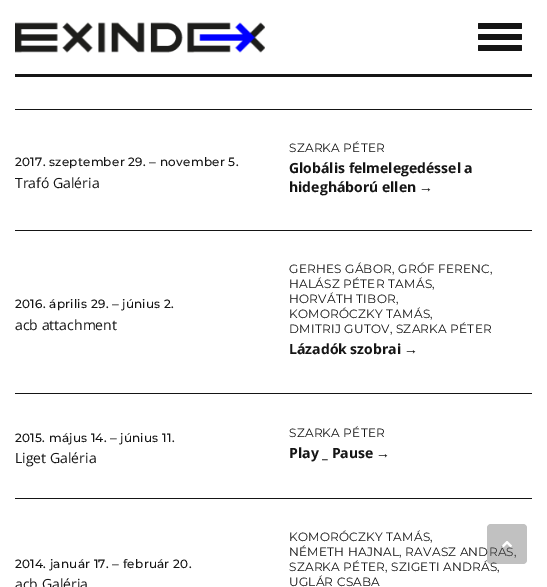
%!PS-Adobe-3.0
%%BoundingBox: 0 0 547 587
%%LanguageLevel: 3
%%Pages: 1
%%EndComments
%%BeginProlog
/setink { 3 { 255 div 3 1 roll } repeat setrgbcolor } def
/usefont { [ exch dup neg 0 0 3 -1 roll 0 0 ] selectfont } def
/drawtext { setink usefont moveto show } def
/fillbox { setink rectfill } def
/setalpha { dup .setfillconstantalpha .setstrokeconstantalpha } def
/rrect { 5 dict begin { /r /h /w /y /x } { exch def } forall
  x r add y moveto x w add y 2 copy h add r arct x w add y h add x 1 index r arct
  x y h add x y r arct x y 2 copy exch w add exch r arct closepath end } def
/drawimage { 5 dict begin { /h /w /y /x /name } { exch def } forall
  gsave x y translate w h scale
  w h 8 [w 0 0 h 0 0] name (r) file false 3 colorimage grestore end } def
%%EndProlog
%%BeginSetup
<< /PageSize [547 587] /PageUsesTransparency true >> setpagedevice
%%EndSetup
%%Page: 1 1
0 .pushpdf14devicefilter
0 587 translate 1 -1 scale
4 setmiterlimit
0 0 547 587 255 255 255 fillbox
(assets/img1.rgb) 15 22 250 31 drawimage
21 21 21 setink
478 23 44 6 1 rrect fill
478 34 44 6 1 rrect fill
478 45 44 6 1 rrect fill
15 74 517 3 21 21 21 fillbox
15 109 517 1 21 21 21 fillbox
/Montserrat-Medium 12 usefont
15 166 moveto 0.25 0 (2017. szeptember 29.) ashow
/LiberationSans-Regular 12 usefont
149 166 moveto 0.25 0 (‒) ashow
/Montserrat-Medium 12 usefont
160 166 moveto 0.25 0 (november 5.) ashow
(Trafó Galéria) 15 188 /OpenSans-Regular 14 21 21 21 drawtext
/Montserrat-Regular 12 usefont
289 152 moveto 0.25 0 (SZARKA PÉTER) ashow
(Globális felmelegedéssel a) 289 173 /OpenSans-Bold 14 21 21 21 drawtext
(hidegháború ellen) 289 192 /OpenSans-Bold 14 21 21 21 drawtext
(→) 419 192 /LiberationSans-Bold 14 21 21 21 drawtext
15 230 517 1 21 21 21 fillbox
/Montserrat-Medium 12 usefont
15 308 moveto 0.25 0 (2016. április 29.) ashow
/LiberationSans-Regular 12 usefont
112 308 moveto 0.25 0 (‒) ashow
/Montserrat-Medium 12 usefont
122 308 moveto 0.25 0 (június 2.) ashow
(acb attachment) 15 330 /OpenSans-Regular 14 21 21 21 drawtext
/Montserrat-Regular 12 usefont
289 273 moveto 0.25 0 (GERHES GÁBOR, GRÓF FERENC,) ashow
289 288 moveto 0.25 0 (HALÁSZ PÉTER TAMÁS,) ashow
289 303 moveto 0.25 0 (HORVÁTH TIBOR,) ashow
289 318 moveto 0.25 0 (KOMORÓCZKY TAMÁS,) ashow
289 333 moveto 0.25 0 (DMITRIJ GUTOV, SZARKA PÉTER) ashow
(Lázadók szobrai) 289 354 /OpenSans-Bold 14 21 21 21 drawtext
(→) 404 354 /LiberationSans-Bold 14 21 21 21 drawtext
15 393 517 1 21 21 21 fillbox
/Montserrat-Medium 12 usefont
15 442 moveto 0.25 0 (2015. május 14.) ashow
/LiberationSans-Regular 12 usefont
110 442 moveto 0.25 0 (‒) ashow
/Montserrat-Medium 12 usefont
120 442 moveto 0.25 0 (június 11.) ashow
(Liget Galéria) 15 463 /OpenSans-Regular 14 21 21 21 drawtext
/Montserrat-Regular 12 usefont
289 437 moveto 0.25 0 (SZARKA PÉTER) ashow
(Play _ Pause) 289 458 /OpenSans-Bold 14 21 21 21 drawtext
(→) 376 458 /LiberationSans-Bold 14 21 21 21 drawtext
15 498 517 1 21 21 21 fillbox
/Montserrat-Medium 12 usefont
15 568 moveto 0.25 0 (2014. január 17.) ashow
/LiberationSans-Regular 12 usefont
112 568 moveto 0.25 0 (‒) ashow
/Montserrat-Medium 12 usefont
123 568 moveto 0.25 0 (február 20.) ashow
(acb Galéria) 15 589 /OpenSans-Regular 14 21 21 21 drawtext
/Montserrat-Regular 12 usefont
289 541 moveto 0.25 0 (KOMORÓCZKY TAMÁS,) ashow
289 556 moveto 0.25 0 (NÉMETH HAJNAL, RAVASZ ANDRÁS,) ashow
289 571 moveto 0.25 0 (SZARKA PÉTER, SZIGETI ANDRÁS,) ashow
289 586 moveto 0.25 0 (UGLÁR CSABA) ashow
0.4 setalpha
100 100 100 setink
487 524 40 40 4 rrect fill
1 setalpha
(assets/img2.rgb) 502 541 10 7 drawimage
.poppdf14devicefilter showpage
%%EOF
